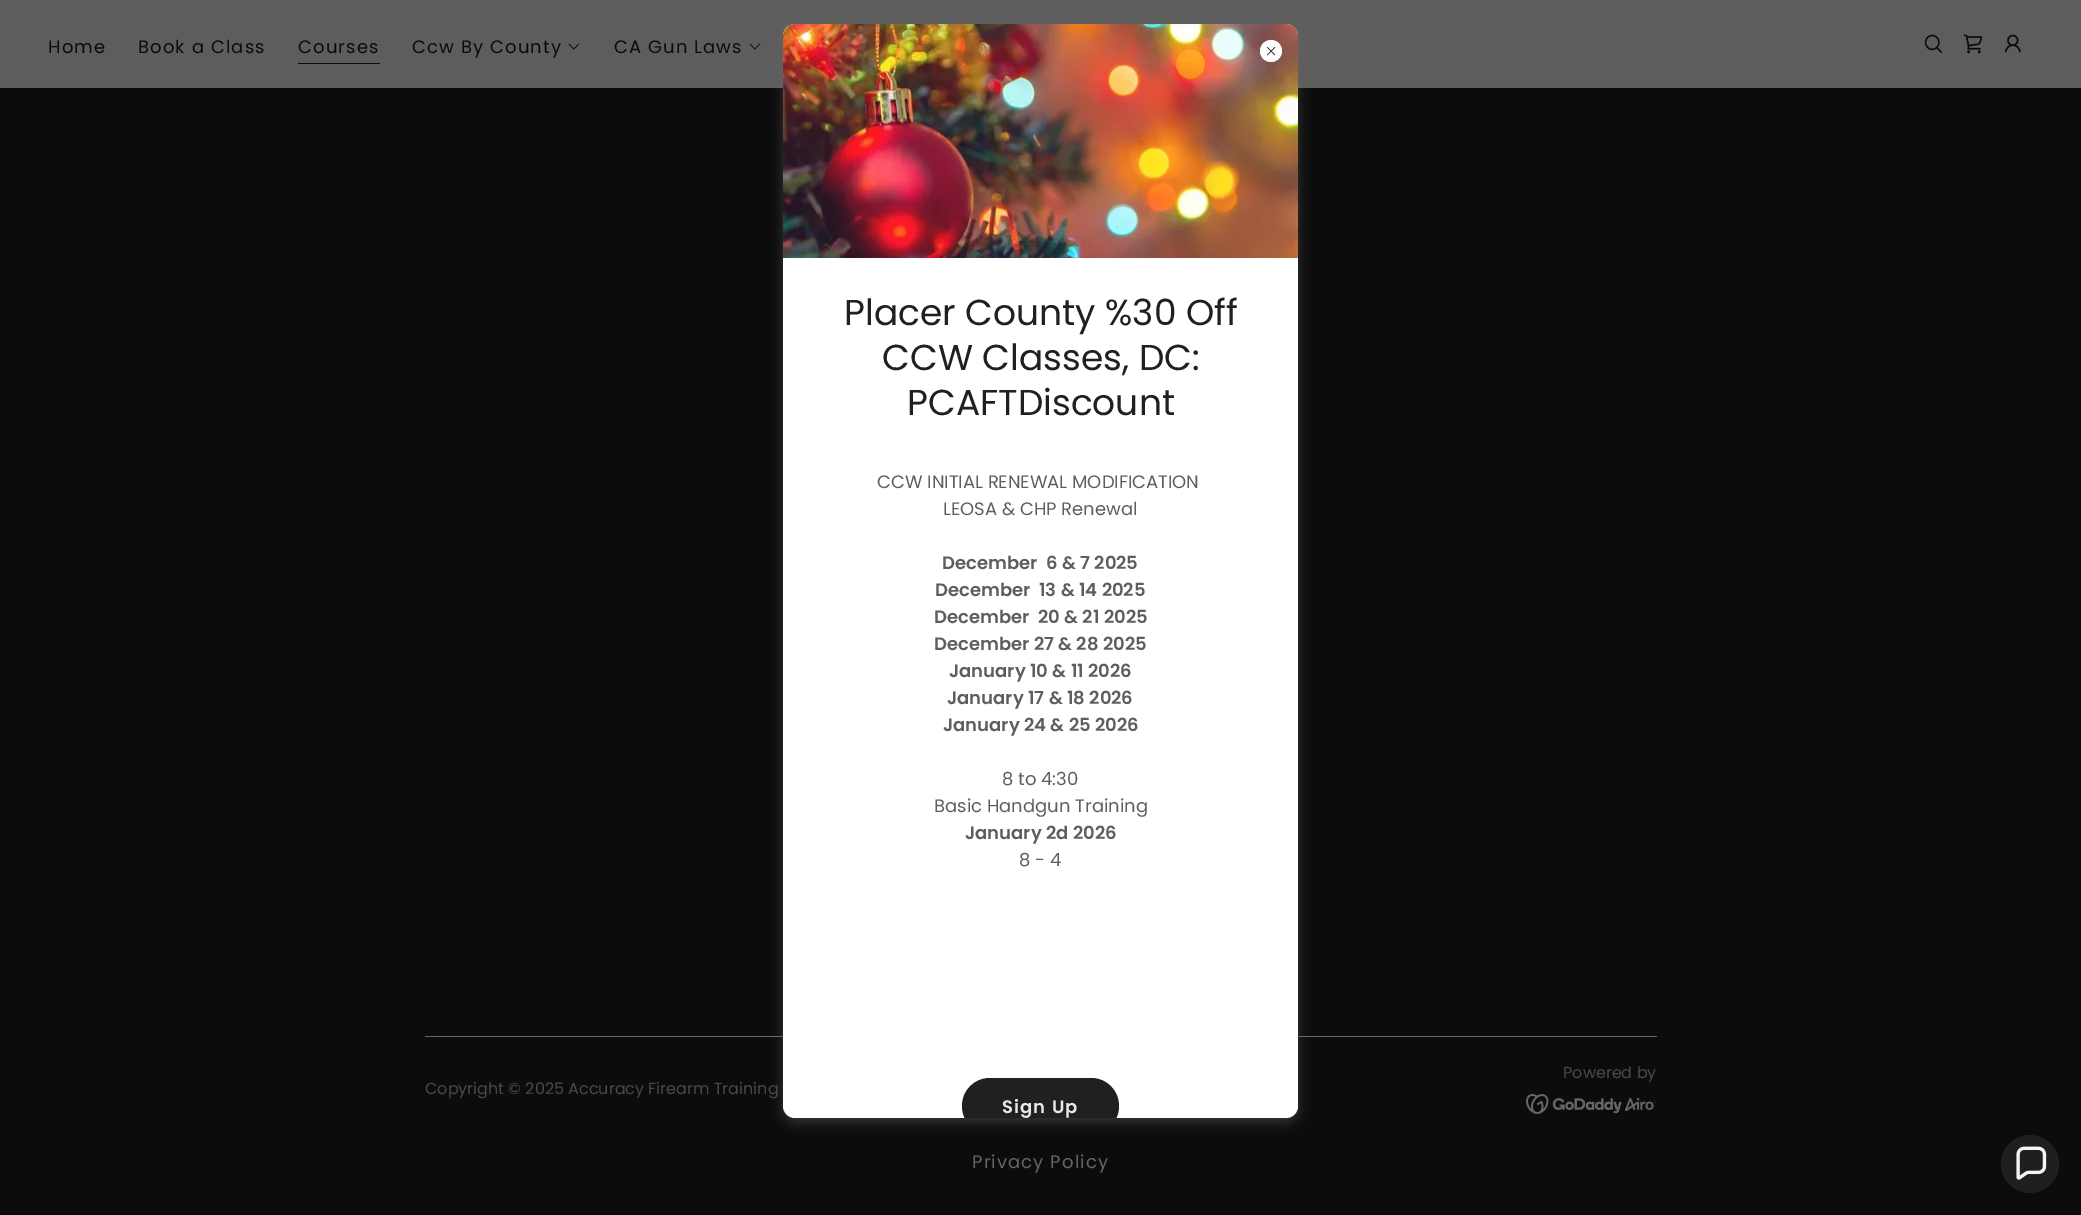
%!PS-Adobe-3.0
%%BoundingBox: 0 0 2081 1215
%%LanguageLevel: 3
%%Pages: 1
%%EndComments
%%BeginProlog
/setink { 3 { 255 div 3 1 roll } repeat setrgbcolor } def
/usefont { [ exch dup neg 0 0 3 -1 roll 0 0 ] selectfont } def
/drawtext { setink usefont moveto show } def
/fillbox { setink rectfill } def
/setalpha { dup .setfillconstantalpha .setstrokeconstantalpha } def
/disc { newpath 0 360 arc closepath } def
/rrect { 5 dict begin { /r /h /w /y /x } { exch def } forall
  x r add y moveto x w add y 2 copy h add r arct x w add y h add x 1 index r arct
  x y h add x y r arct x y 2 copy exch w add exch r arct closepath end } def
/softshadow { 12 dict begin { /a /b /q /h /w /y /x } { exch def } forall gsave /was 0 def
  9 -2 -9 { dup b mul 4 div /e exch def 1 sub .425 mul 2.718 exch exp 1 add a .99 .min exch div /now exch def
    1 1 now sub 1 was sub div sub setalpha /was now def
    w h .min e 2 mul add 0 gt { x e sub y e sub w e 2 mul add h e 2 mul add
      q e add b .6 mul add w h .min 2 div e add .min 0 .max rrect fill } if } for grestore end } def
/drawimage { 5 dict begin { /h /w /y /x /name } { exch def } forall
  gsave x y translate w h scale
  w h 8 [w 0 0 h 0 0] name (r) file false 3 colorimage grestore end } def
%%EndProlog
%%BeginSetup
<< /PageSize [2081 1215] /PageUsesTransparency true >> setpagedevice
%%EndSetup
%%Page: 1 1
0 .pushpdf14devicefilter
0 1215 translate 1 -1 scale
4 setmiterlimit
0 0 2081 1215 13 12 12 fillbox
0 0 2081 88 93 93 93 fillbox
/Poppins-Regular 18 usefont
11 11 11 setink
48 53 moveto 1.1 0 (Home) ashow
138 53 moveto 1.1 0 (Book a Class) ashow
298 63 82 1 11 11 11 fillbox
298 53 moveto 1.1 0 (Courses) ashow
412 53 moveto 1.1 0 (Ccw By County) ashow
(assets/img1.rgb) 568 43 12 7 drawimage
614 53 moveto 1.1 0 (CA Gun Laws) ashow
(assets/img1.rgb) 749 43 12 7 drawimage
(assets/img2.rgb) 1924 34 18 19 drawimage
(assets/img3.rgb) 1963 34 20 20 drawimage
(assets/img4.rgb) 2004 34 17 19 drawimage
425 1036 1232 1 102 102 102 fillbox
117 117 117 setink
783 28 515 1094 12 6 0.4 softshadow
255 255 255 setink
783 24 515 1094 12 rrect fill
(assets/img6.rgb) 783 24 515 234 drawimage
1271 51 11 disc fill
(assets/img5.rgb) 1267 47 9 9 drawimage
(Placer County %30 Off) 844 325 /Poppins-Regular 36 33 31 31 drawtext
(CCW Classes, DC:) 882 370 /Poppins-Regular 36 33 31 31 drawtext
(PCAFTDiscount) 907 415 /Poppins-Regular 36 33 31 31 drawtext
(CCW INITIAL RENEWAL MODIFICATION) 877 488 /Poppins-Regular 18 94 94 94 drawtext
(LEOSA & CHP Renewal) 943 515 /Poppins-Regular 18 94 94 94 drawtext
(December  6 & 7 2025) 942 569 /Poppins-SemiBold 18 94 94 94 drawtext
(December  13 & 14 2025) 935 596 /Poppins-SemiBold 18 94 94 94 drawtext
(December  20 & 21 2025) 934 623 /Poppins-SemiBold 18 94 94 94 drawtext
(December 27 & 28 2025) 934 650 /Poppins-SemiBold 18 94 94 94 drawtext
(January 10 & 11 2026) 949 677 /Poppins-SemiBold 18 94 94 94 drawtext
(January 17 & 18 2026) 947 704 /Poppins-SemiBold 18 94 94 94 drawtext
(January 24 & 25 2026) 943 731 /Poppins-SemiBold 18 94 94 94 drawtext
(8 to 4:30) 1002 785 /Poppins-Regular 18 94 94 94 drawtext
(Basic Handgun Training) 934 812 /Poppins-Regular 18 94 94 94 drawtext
(January 2d 2026) 965 839 /Poppins-SemiBold 18 94 94 94 drawtext
(8 - 4) 1019 866 /Poppins-Regular 18 94 94 94 drawtext
gsave
783 24 515 1094 12 rrect clip newpath
33 31 31 setink
962 1078 157 56 28 rrect fill
grestore
/Poppins-SemiBold 18 usefont
232 232 232 setink
1002 1113 moveto 1.1 0 (Sign Up) ashow
(Powered by) 1563 1078 /Poppins-Regular 16 73 73 73 drawtext
(assets/img7.rgb) 1526 1094 130 20 drawimage
(Copyright © 2025 Accuracy Firearm Training) 425 1094 /Poppins-Regular 16 73 73 73 drawtext
/Poppins-Regular 18 usefont
102 102 102 setink
972 1168 moveto 1.1 0 (Privacy Policy) ashow
32 30 30 setink
2030 1164 29 disc fill
(assets/img8.rgb) 2016 1146 31 34 drawimage
.poppdf14devicefilter showpage
%%EOF
